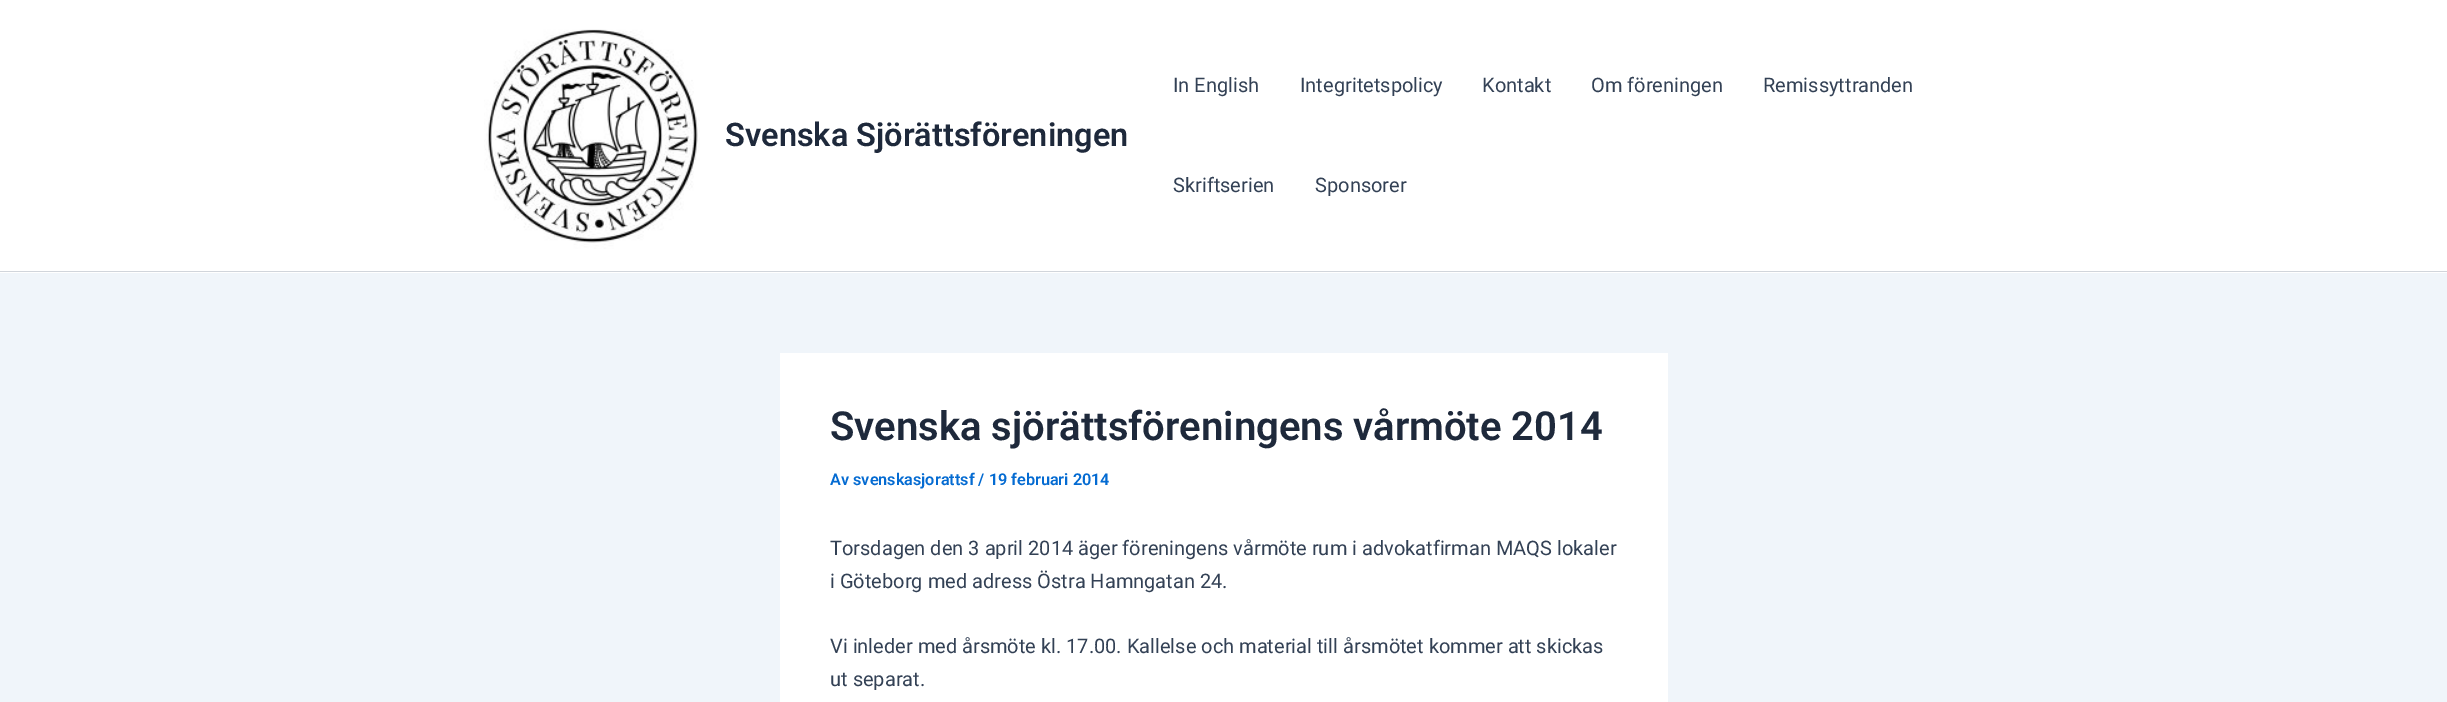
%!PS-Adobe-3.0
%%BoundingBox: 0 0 2447 702
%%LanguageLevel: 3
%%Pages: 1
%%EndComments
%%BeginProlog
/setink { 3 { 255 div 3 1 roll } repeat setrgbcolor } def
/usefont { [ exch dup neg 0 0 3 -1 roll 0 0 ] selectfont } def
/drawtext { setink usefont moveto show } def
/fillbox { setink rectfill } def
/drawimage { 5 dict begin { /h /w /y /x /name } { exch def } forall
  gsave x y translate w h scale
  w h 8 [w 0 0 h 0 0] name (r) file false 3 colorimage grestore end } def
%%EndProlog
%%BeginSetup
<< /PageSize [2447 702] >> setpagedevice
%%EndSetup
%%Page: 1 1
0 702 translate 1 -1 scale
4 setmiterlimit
0 0 2447 702 240 245 250 fillbox
0 0 2447 273 255 255 255 fillbox
0 271 2447 1 209 213 219 fillbox
(assets/img1.rgb) 484 29 216 220 drawimage
(Svenska Sjörättsföreningen) 725 146 /Roboto-SemiBold 32.5 30 41 59 drawtext
(In English) 1173 92 /Roboto-Regular 20 51 65 85 drawtext
(Integritetspolicy) 1300 92 /Roboto-Regular 20 51 65 85 drawtext
(Kontakt) 1482 92 /Roboto-Regular 20 51 65 85 drawtext
(Om föreningen) 1591 92 /Roboto-Regular 20 51 65 85 drawtext
(Remissyttranden) 1763 92 /Roboto-Regular 20 51 65 85 drawtext
(Skriftserien) 1173 192 /Roboto-Regular 20 51 65 85 drawtext
(Sponsorer) 1315 192 /Roboto-Regular 20 51 65 85 drawtext
780 353 888 349 255 255 255 fillbox
(Svenska sjörättsföreningens vårmöte 2014) 830 440 /Roboto-SemiBold 40 30 41 59 drawtext
(Av svenskasjorattsf / 19 februari 2014) 830 485 /Roboto-SemiBold 16.25 4 107 210 drawtext
(Torsdagen den 3 april 2014 äger föreningens vårmöte rum i advokatfirman MAQS lokaler) 830 555 /Roboto-Regular 20 51 65 85 drawtext
(i Göteborg med adress Östra Hamngatan 24.) 830 588 /Roboto-Regular 20 51 65 85 drawtext
(Vi inleder med årsmöte kl. 17.00. Kallelse och material till årsmötet kommer att skickas) 830 653 /Roboto-Regular 20 51 65 85 drawtext
(ut separat.) 830 686 /Roboto-Regular 20 51 65 85 drawtext
showpage
%%EOF
